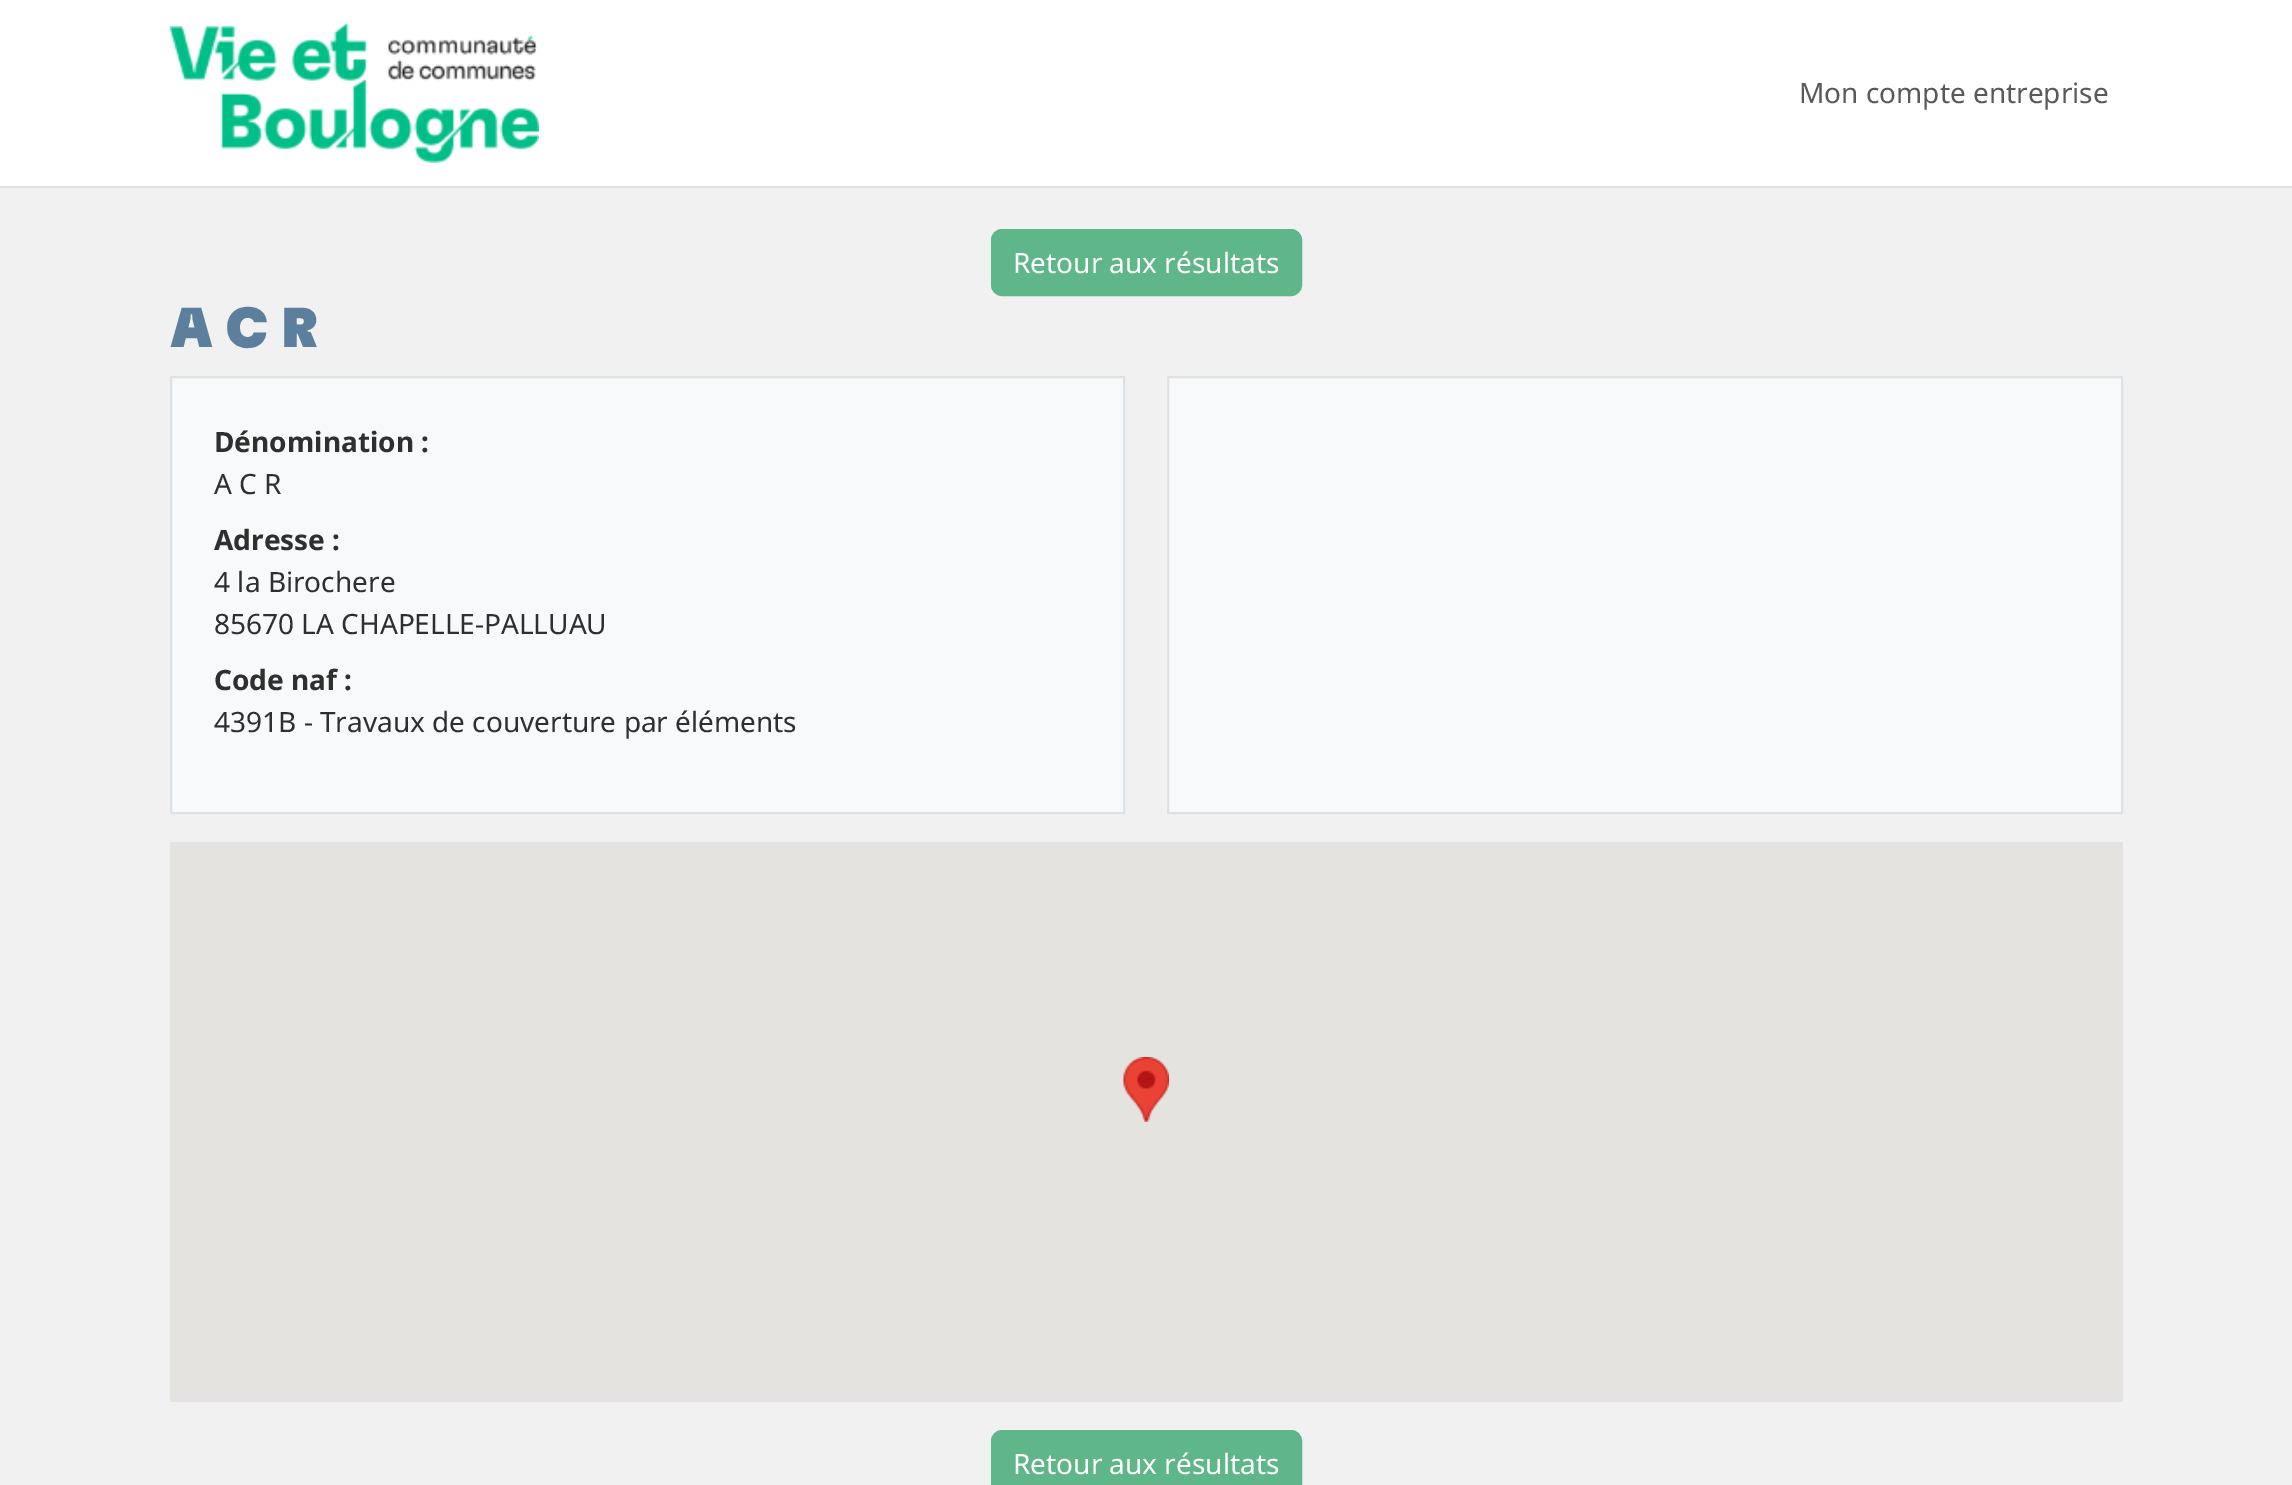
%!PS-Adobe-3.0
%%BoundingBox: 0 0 2292 1485
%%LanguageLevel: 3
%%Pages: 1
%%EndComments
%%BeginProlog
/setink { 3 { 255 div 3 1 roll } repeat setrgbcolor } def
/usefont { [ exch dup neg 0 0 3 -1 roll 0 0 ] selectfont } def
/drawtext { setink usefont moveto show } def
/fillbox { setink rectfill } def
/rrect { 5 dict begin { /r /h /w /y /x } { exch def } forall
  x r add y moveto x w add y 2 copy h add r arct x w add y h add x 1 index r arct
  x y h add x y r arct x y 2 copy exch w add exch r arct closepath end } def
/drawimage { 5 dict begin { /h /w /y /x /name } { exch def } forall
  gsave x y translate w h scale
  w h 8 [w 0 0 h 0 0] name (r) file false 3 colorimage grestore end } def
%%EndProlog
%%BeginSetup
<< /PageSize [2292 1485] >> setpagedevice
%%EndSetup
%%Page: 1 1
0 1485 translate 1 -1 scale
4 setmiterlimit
0 0 2292 1485 241 241 241 fillbox
0 0 2292 186 255 255 255 fillbox
0 186 2292 2 222 226 230 fillbox
(assets/img1.rgb) 169 22 370 141 drawimage
(Mon compte entreprise) 1799 103 /NotoSans-Regular 28 89 89 89 drawtext
94 182 137 setink
992 230 309 65 10 rrect gsave fill grestore
2 setlinewidth
stroke
(Retour aux résultats) 1013 273 /NotoSans-Regular 28 255 255 255 drawtext
(A C R) 170 347 /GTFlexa-ExtraBold 56 91 127 156 drawtext
248 249 250 setink
171 377 moveto 1124 377 lineto 1124 813 lineto 171 813 lineto closepath gsave fill grestore
222 226 230 setink
stroke
(Dénomination :) 214 452 /NotoSans-Bold 28 47 47 47 drawtext
(A C R) 214 494 /NotoSans-Regular 28 47 47 47 drawtext
(Adresse :) 214 550 /NotoSans-Bold 28 47 47 47 drawtext
(4 la Birochere) 214 592 /NotoSans-Regular 28 47 47 47 drawtext
(85670 LA CHAPELLE-PALLUAU) 214 634 /NotoSans-Regular 28 47 47 47 drawtext
(Code naf :) 214 690 /NotoSans-Bold 28 47 47 47 drawtext
(4391B - Travaux de couverture par éléments) 214 732 /NotoSans-Regular 28 47 47 47 drawtext
248 249 250 setink
1168 377 moveto 2122 377 lineto 2122 813 lineto 1168 813 lineto closepath gsave fill grestore
222 226 230 setink
stroke
170 842 1953 560 229 227 223 fillbox
(assets/img2.rgb) 1123 1057 46 65 drawimage
94 182 137 setink
992 1431 309 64 10 rrect gsave fill grestore
stroke
(Retour aux résultats) 1013 1474 /NotoSans-Regular 28 255 255 255 drawtext
showpage
%%EOF
